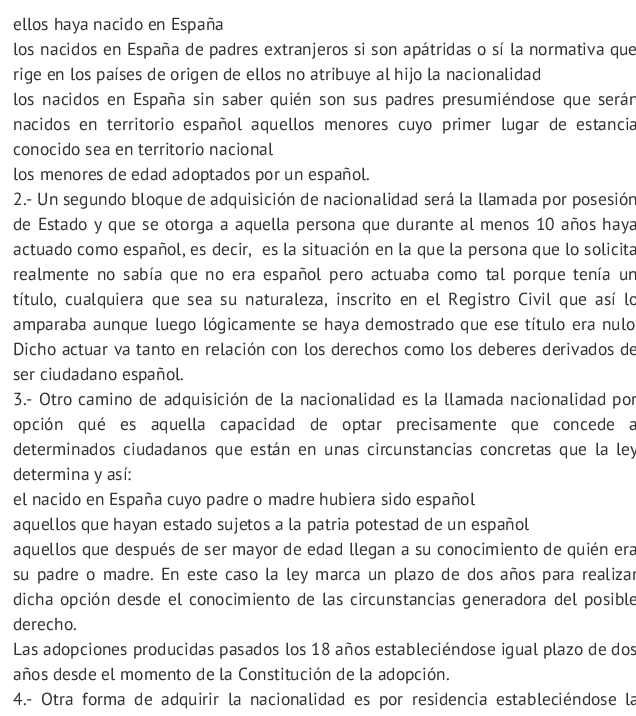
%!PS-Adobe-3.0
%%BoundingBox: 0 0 636 716
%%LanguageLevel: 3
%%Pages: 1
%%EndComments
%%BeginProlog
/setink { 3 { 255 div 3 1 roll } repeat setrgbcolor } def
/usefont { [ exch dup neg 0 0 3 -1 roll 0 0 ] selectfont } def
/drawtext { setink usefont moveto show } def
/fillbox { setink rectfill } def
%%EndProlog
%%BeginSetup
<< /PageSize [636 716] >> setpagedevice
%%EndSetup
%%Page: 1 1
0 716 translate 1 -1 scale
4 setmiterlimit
0 0 636 716 255 255 255 fillbox
(ellos haya nacido en España) 13 30 /PTSans-Regular 17.5 51 51 51 drawtext
13 55 moveto 0.75 0 32 (los nacidos en España de padres extranjeros si son apátridas o sí la normativa que) widthshow
(rige en los países de origen de ellos no atribuye al hijo la nacionalidad) 13 80 /PTSans-Regular 17.5 51 51 51 drawtext
13 105 moveto 2.75 0 32 (los nacidos en España sin saber quién son sus padres presumiéndose que serán) widthshow
13 130 moveto 4.75 0 32 (nacidos en territorio español aquellos menores cuyo primer lugar de estancia) widthshow
(conocido sea en territorio nacional) 13 155 /PTSans-Regular 17.5 51 51 51 drawtext
(los menores de edad adoptados por un español.) 13 180 /PTSans-Regular 17.5 51 51 51 drawtext
(2.- Un segundo bloque de adquisición de nacionalidad será la llamada por posesión) 13 205 /PTSans-Regular 17.5 51 51 51 drawtext
13 230 moveto 1.6 0 32 (de Estado y que se otorga a aquella persona que durante al menos 10 años haya) widthshow
13 255 moveto 0.25 0 32 (actuado como español, es decir,  es la situación en la que la persona que lo solicita) widthshow
13 280 moveto 3 0 32 (realmente no sabía que no era español pero actuaba como tal porque tenía un) widthshow
13 305 moveto 3.4 0 32 (título, cualquiera que sea su naturaleza, inscrito en el Registro Civil que así lo) widthshow
13 330 moveto 1.5 0 32 (amparaba aunque luego lógicamente se haya demostrado que ese título era nulo.) widthshow
13 355 moveto 0.9 0 32 (Dicho actuar va tanto en relación con los derechos como los deberes derivados de) widthshow
(ser ciudadano español.) 13 380 /PTSans-Regular 17.5 51 51 51 drawtext
13 405 moveto 1.6 0 32 (3.- Otro camino de adquisición de la nacionalidad es la llamada nacionalidad por) widthshow
13 430 moveto 9.75 0 32 (opción qué es aquella capacidad de optar precisamente que concede a) widthshow
13 455 moveto 2.9 0 32 (determinados ciudadanos que están en unas circunstancias concretas que la ley) widthshow
(determina y así:) 13 480 /PTSans-Regular 17.5 51 51 51 drawtext
(el nacido en España cuyo padre o madre hubiera sido español) 13 505 /PTSans-Regular 17.5 51 51 51 drawtext
(aquellos que hayan estado sujetos a la patria potestad de un español) 13 530 /PTSans-Regular 17.5 51 51 51 drawtext
13 555 moveto 0.6 0 32 (aquellos que después de ser mayor de edad llegan a su conocimiento de quién era) widthshow
13 580 moveto 2.4 0 32 (su padre o madre. En este caso la ley marca un plazo de dos años para realizar) widthshow
13 605 moveto 2.1 0 32 (dicha opción desde el conocimiento de las circunstancias generadora del posible) widthshow
(derecho.) 13 630 /PTSans-Regular 17.5 51 51 51 drawtext
13 655 moveto 0.25 0 32 (Las adopciones producidas pasados los 18 años estableciéndose igual plazo de dos) widthshow
(años desde el momento de la Constitución de la adopción.) 13 680 /PTSans-Regular 17.5 51 51 51 drawtext
13 705 moveto 3.75 0 32 (4.- Otra forma de adquirir la nacionalidad es por residencia estableciéndose la) widthshow
showpage
%%EOF
